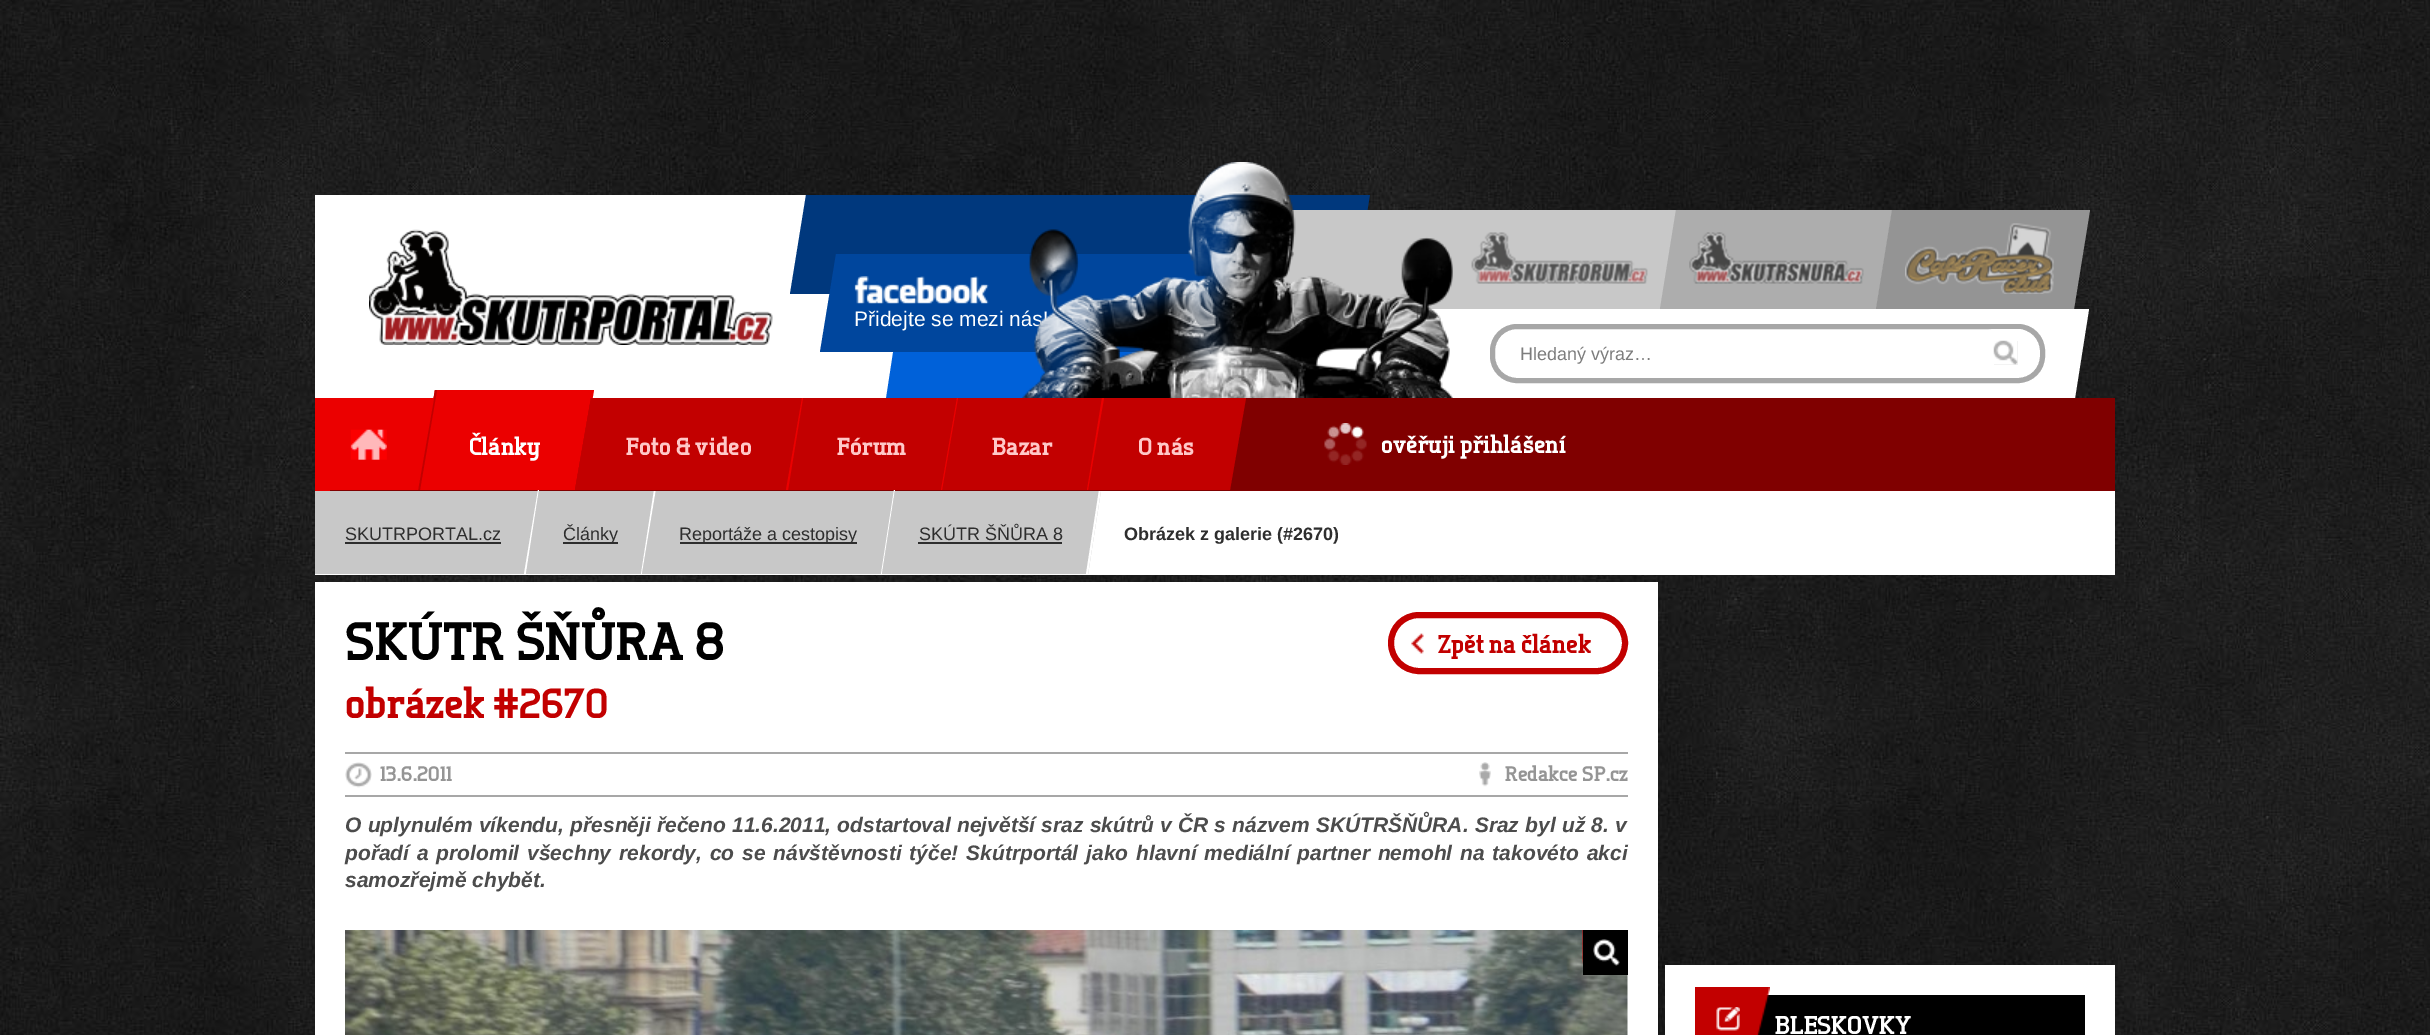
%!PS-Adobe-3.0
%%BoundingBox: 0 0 2430 1035
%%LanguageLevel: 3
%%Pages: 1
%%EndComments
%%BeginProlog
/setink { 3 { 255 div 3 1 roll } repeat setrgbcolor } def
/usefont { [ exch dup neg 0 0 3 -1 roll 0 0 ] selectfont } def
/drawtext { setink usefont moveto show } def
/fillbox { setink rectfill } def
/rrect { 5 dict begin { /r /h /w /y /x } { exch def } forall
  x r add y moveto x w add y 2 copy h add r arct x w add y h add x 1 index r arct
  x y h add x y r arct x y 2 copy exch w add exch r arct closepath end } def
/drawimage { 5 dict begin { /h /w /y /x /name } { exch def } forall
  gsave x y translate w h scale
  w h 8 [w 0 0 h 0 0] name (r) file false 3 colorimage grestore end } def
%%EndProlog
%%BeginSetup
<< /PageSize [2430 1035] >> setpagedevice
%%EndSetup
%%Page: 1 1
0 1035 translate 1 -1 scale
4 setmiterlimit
0 0 2430 1035 255 255 255 fillbox
(assets/img1.rgb) 0 0 2430 1035 drawimage
315 195 579 203 255 255 255 fillbox
(assets/img2.rgb) 369 229 404 116 drawimage
0 56 125 setink
806 195 moveto 1370 195 lineto 1354 294 lineto 790 294 lineto closepath fill
1281 210 611 99 200 200 200 fillbox
0 97 217 setink
902 294 moveto 1241 294 lineto 1225 399 lineto 886 399 lineto closepath fill
0 70 157 setink
836 254 moveto 1229 254 lineto 1213 352 lineto 820 352 lineto closepath fill
(Přidejte se mezi nás!) 854 326 /LiberationSans-Regular 21 255 255 255 drawtext
1287 309 moveto 2089 309 lineto 2075 398 lineto 1272 398 lineto closepath fill
(assets/img3.rgb) 1022 162 431 236 drawimage
(assets/img4.rgb) 1471 232 177 52 drawimage
173 173 173 setink
1676 210 moveto 1892 210 lineto 1876 309 lineto 1660 309 lineto closepath fill
(assets/img5.rgb) 1689 232 175 52 drawimage
148 148 148 setink
1892 210 moveto 2090 210 lineto 2074 309 lineto 1876 309 lineto closepath fill
(assets/img6.rgb) 1905 223 149 71 drawimage
(assets/img7.rgb) 854 276 135 28 drawimage
167 167 167 setink
5 setlinewidth
1492.5 326.5 550 54 24.5 rrect stroke
(Hledaný výraz…) 1520 360 /LiberationSans-Regular 18 125 125 125 drawtext
1994 341 24 24 239 239 239 fillbox
255 255 255 setink
9 setlinewidth
1983.5 333.5 45 36 10.5 rrect stroke
(assets/img8.rgb) 1993 340 25 25 drawimage
330 398 1785 93 128 0 0 fillbox
235 0 0 setink
435 390 moveto 594 390 lineto 577 490 lineto 418 490 lineto closepath fill
194 0 0 setink
435 390 moveto 437 390 lineto 420 490 lineto 418 490 lineto closepath fill
gsave
315 390 1800 533 rectclip
235 0 0 setink
323 398 moveto 434 398 lineto 418 490 lineto 307 490 lineto closepath fill
grestore
315 398 15 93 235 0 0 fillbox
(assets/img9.rgb) 350 429 37 31 drawimage
(Články) 469 455 /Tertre-ExtraBold 24.75 255 255 255 drawtext
194 0 0 setink
591 398 moveto 803 398 lineto 788 490 lineto 575 490 lineto closepath fill
591 398 moveto 592 398 lineto 577 490 lineto 575 490 lineto closepath fill
(Foto & video) 626 455 /Tertre-ExtraBold 24.75 255 200 200 drawtext
194 0 0 setink
802 398 moveto 958 398 lineto 942 490 lineto 786 490 lineto closepath fill
235 0 0 setink
802 398 moveto 803 398 lineto 788 490 lineto 786 490 lineto closepath fill
(Fórum) 837 455 /Tertre-ExtraBold 24.75 255 200 200 drawtext
194 0 0 setink
957 398 moveto 1104 398 lineto 1088 490 lineto 941 490 lineto closepath fill
235 0 0 setink
957 398 moveto 958 398 lineto 942 490 lineto 941 490 lineto closepath fill
(Bazar) 992 455 /Tertre-ExtraBold 24.75 255 200 200 drawtext
194 0 0 setink
1102 398 moveto 1246 398 lineto 1230 490 lineto 1087 490 lineto closepath fill
235 0 0 setink
1102 398 moveto 1104 398 lineto 1088 490 lineto 1087 490 lineto closepath fill
(O nás) 1138 455 /Tertre-ExtraBold 24.75 255 200 200 drawtext
(assets/img10.rgb) 1324 423 43 42 drawimage
(ověřuji přihlášení) 1381 453 /Tertre-ExtraBold 24.75 255 255 255 drawtext
315 491 1800 84 255 255 255 fillbox
gsave
315 491 1800 84 rectclip
200 200 200 setink
314 490 moveto 539 490 lineto 526 574 lineto 301 574 lineto closepath fill
grestore
(SKUTRPORTAL.cz) 345 540 /LiberationSans-Regular 18 46 46 46 drawtext
345 542 156 2 46 46 46 fillbox
255 255 255 setink
538 490 moveto 524 574 lineto 526 574 lineto 539 490 lineto 654 490 lineto closepath fill
gsave
315 491 1800 84 rectclip
200 200 200 setink
539 490 moveto 656 490 lineto 642 574 lineto 526 574 lineto closepath fill
grestore
563 542 55 2 46 46 46 fillbox
(Články) 563 540 /LiberationSans-Regular 18 46 46 46 drawtext
gsave
315 491 1800 84 rectclip
255 255 255 setink
654 490 moveto 641 574 lineto 642 574 lineto 656 490 lineto 894 490 lineto closepath fill
200 200 200 setink
656 490 moveto 895 490 lineto 882 574 lineto 642 574 lineto closepath fill
grestore
680 542 177 2 46 46 46 fillbox
(Reportáže a cestopisy) 679 540 /LiberationSans-Regular 18 46 46 46 drawtext
255 255 255 setink
894 490 moveto 881 574 lineto 882 574 lineto 895 490 lineto 1099 490 lineto closepath fill
gsave
315 491 1800 84 rectclip
200 200 200 setink
895 490 moveto 1101 490 lineto 1088 574 lineto 882 574 lineto closepath fill
255 255 255 setink
1099 490 moveto 1101 490 lineto 1088 574 lineto 1086 574 lineto closepath fill
grestore
(SKÚTR ŠŇŮRA 8) 919 540 /LiberationSans-Regular 18 46 46 46 drawtext
918 542 144 2 46 46 46 fillbox
(Obrázek z galerie \(#2670\)) 1124 540 /LiberationSans-Bold 18 46 46 46 drawtext
315 582 1343 453 255 255 255 fillbox
(SKÚTR ŠŇŮRA 8) 345 660 /Tertre-ExtraBold 54 0 0 0 drawtext
194 0 0 setink
6 setlinewidth
1391 615 234 56 28 rrect stroke
(assets/img11.rgb) 1411 633 13 21 drawimage
(Zpět na článek) 1438 653 /Tertre-ExtraBold 25.75 194 0 0 drawtext
(obrázek #2670) 345 718 /Tertre-ExtraBold 42 194 0 0 drawtext
345 752 1283 2 167 167 167 fillbox
345 795 1283 2 167 167 167 fillbox
(assets/img12.rgb) 345 762 27 26 drawimage
(13.6.2011) 380 781 /Tertre-ExtraBold 21 149 149 149 drawtext
(assets/img13.rgb) 1479 762 12 25 drawimage
(Redakce SP.cz) 1505 781 /Tertre-ExtraBold 21 149 149 149 drawtext
/LiberationSans-BoldItalic 21 usefont
76 76 76 setink
345 832 moveto 0.4 0 32 (O uplynulém víkendu, přesněji řečeno 11.6.2011, odstartoval největší sraz skútrů v ČR s názvem SKÚTRŠŇŮRA. Sraz byl už 8. v) widthshow
345 860 moveto 2 0 32 (pořadí a prolomil všechny rekordy, co se návštěvnosti týče! Skútrportál jako hlavní mediální partner nemohl na takovéto akci) widthshow
(samozřejmě chybět.) 345 887 /LiberationSans-BoldItalic 21 76 76 76 drawtext
(assets/img14.rgb) 345 930 1283 105 drawimage
1593 939 27 27 0 0 0 fillbox
(assets/img15.rgb) 1582 930 38 36 drawimage
1593 930 27 9 0 0 0 fillbox
1620 930 8 36 0 0 0 fillbox
1593 966 35 9 0 0 0 fillbox
1583 930 10 45 0 0 0 fillbox
1665 965 450 70 255 255 255 fillbox
1756 995 329 40 0 0 0 fillbox
1695 987 60 48 194 0 0 fillbox
(assets/img16.rgb) 1716 1007 24 24 drawimage
(assets/img17.rgb) 1755 987 15 48 drawimage
(BLESKOVKY) 1775 1034 /Tertre-ExtraBold 25.75 255 255 255 drawtext
showpage
%%EOF
